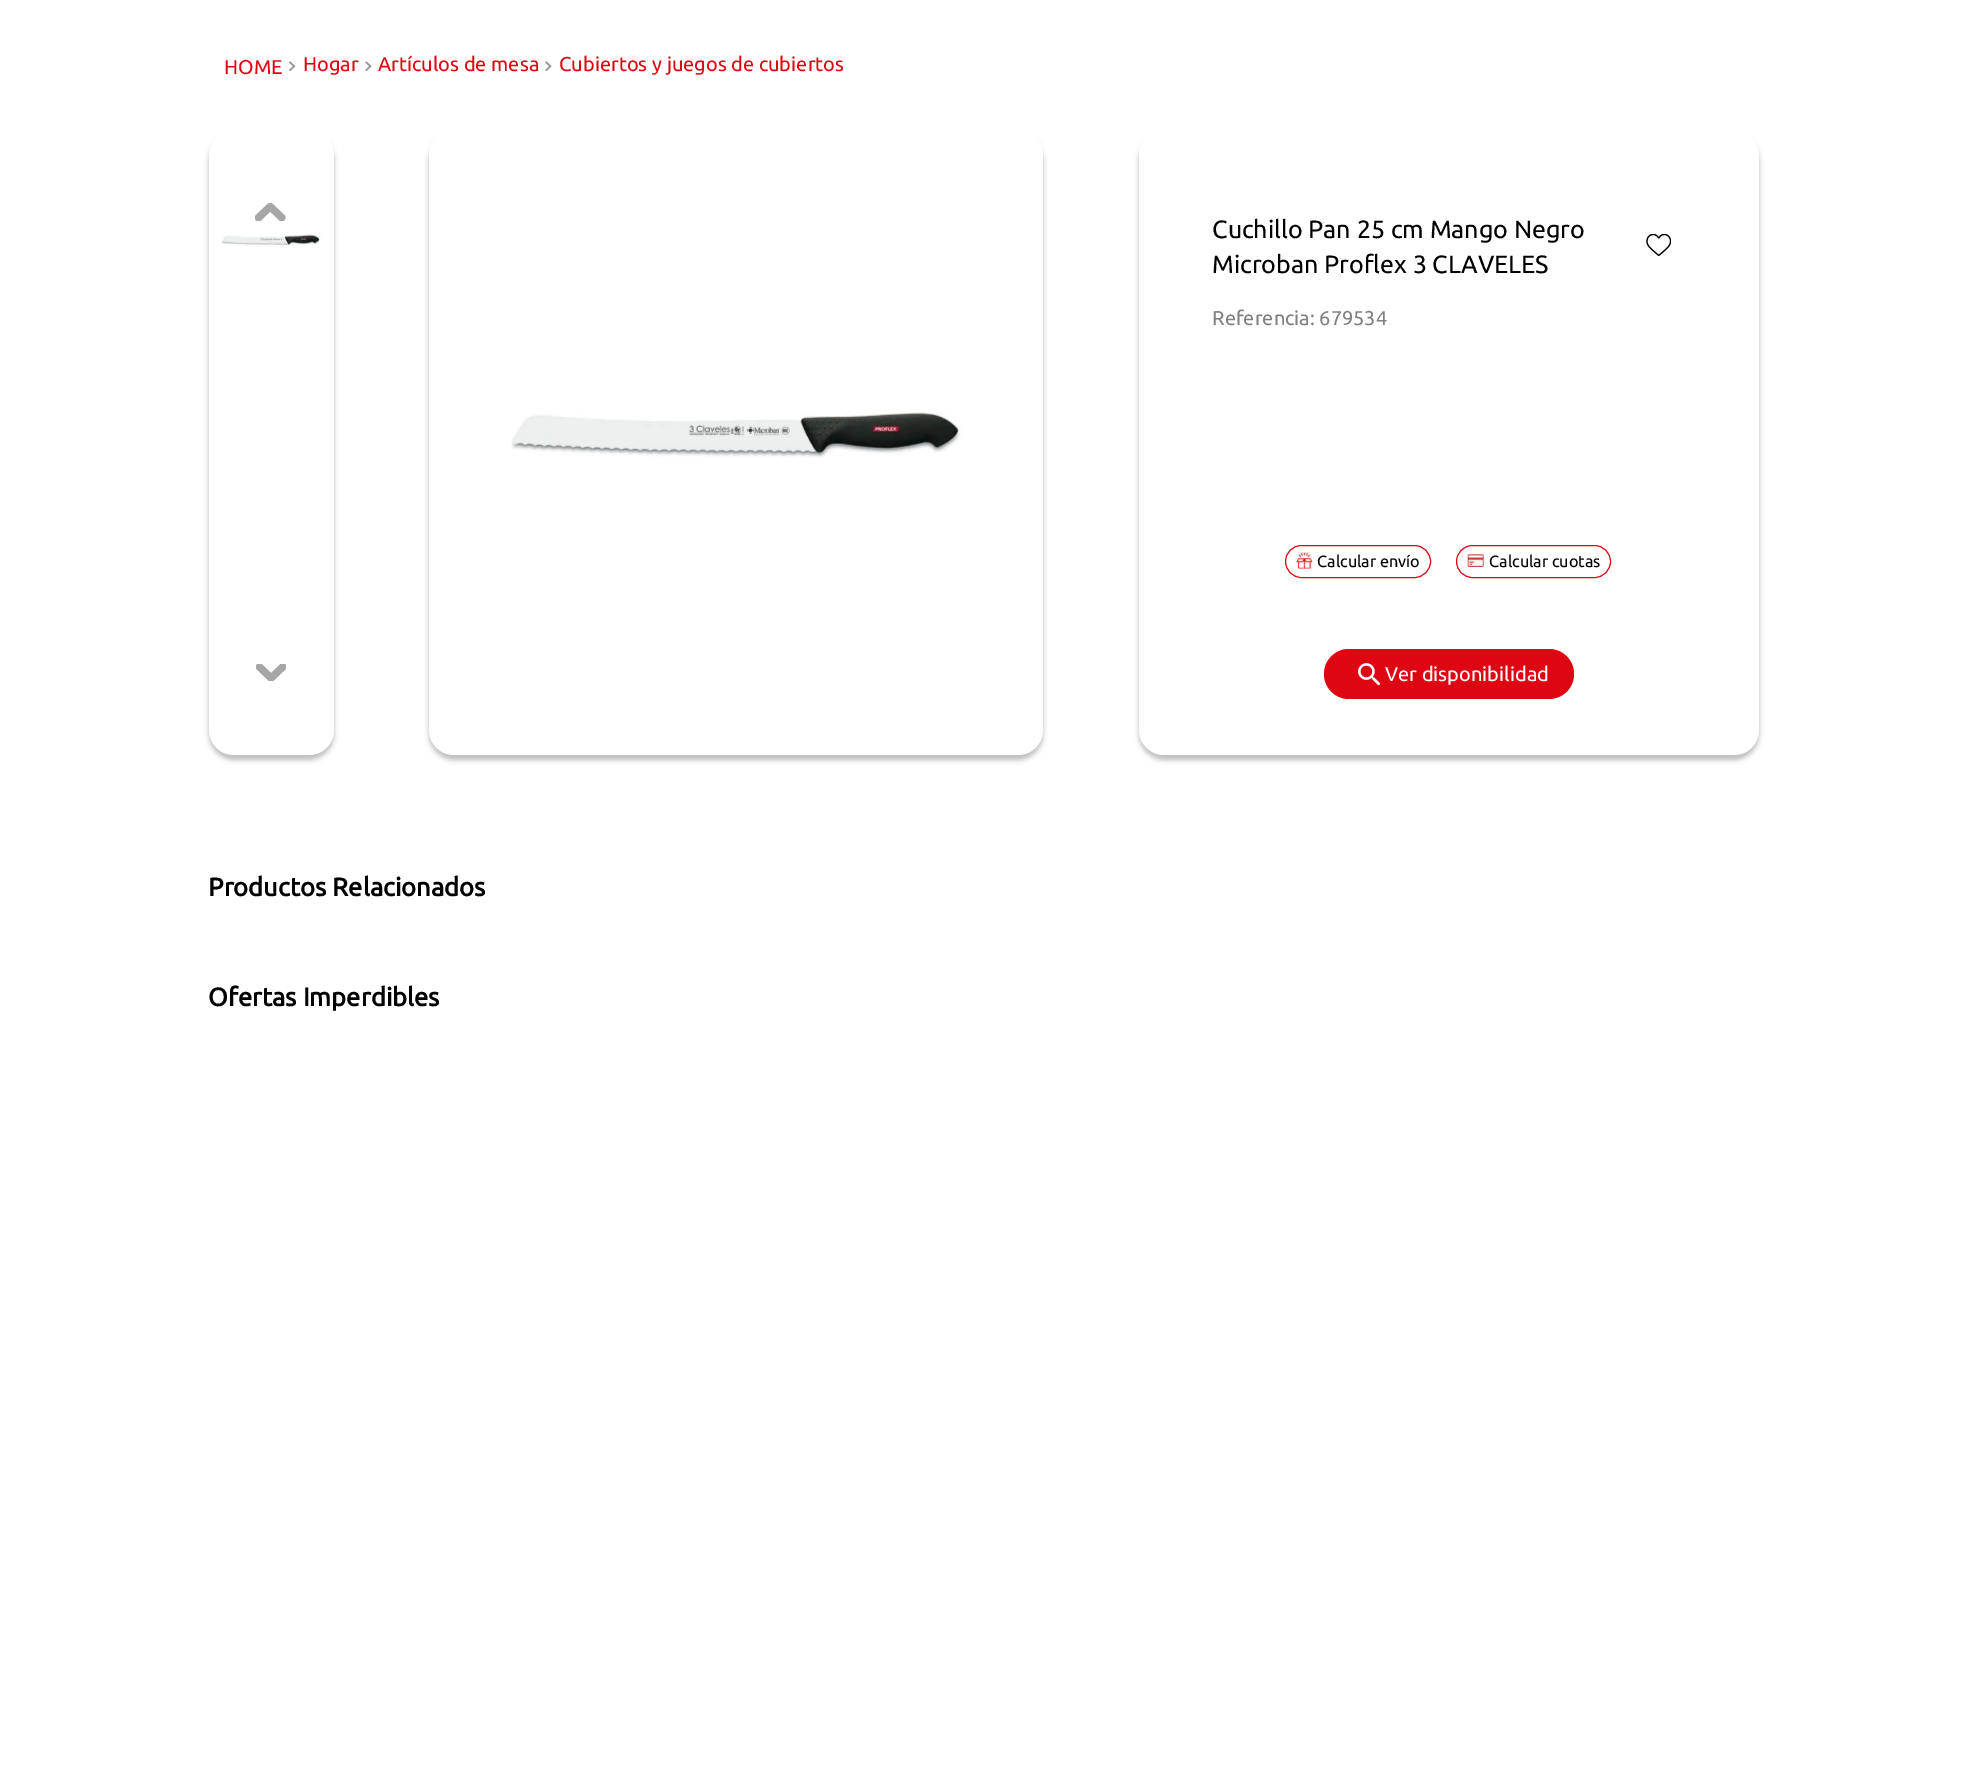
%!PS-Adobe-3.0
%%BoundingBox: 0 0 1966 1792
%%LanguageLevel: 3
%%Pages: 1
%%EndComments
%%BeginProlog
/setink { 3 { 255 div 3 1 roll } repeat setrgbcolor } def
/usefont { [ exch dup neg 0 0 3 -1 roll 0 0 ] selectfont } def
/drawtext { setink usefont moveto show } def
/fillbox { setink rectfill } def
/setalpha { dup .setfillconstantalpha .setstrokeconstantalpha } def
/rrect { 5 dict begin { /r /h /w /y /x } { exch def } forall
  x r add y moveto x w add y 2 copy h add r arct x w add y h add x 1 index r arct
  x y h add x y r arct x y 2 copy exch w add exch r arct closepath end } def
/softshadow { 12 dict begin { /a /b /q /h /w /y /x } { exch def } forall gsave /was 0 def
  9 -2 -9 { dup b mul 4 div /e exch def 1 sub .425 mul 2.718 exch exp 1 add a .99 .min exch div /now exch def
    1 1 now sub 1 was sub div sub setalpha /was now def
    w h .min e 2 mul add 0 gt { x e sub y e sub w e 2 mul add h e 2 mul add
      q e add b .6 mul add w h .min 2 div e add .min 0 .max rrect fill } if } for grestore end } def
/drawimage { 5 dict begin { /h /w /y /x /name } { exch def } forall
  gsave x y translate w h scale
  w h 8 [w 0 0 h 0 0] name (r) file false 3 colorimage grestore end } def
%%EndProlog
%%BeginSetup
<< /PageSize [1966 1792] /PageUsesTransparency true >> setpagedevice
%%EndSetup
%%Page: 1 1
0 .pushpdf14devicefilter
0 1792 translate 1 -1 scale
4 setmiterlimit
0 0 1966 1792 255 255 255 fillbox
(HOME) 224 74 /Ubuntu-Regular 20 222 6 19 drawtext
(assets/img1.rgb) 288 61 8 10 drawimage
(Hogar) 303 71 /Ubuntu-Regular 20 222 6 19 drawtext
(assets/img2.rgb) 365 61 7 10 drawimage
(Artículos de mesa) 378 71 /Ubuntu-Regular 20 222 6 19 drawtext
(assets/img2.rgb) 545 61 7 10 drawimage
(Cubiertos y juegos de cubiertos) 559 71 /Ubuntu-Regular 20 222 6 19 drawtext
0 0 0 setink
209 135 125 625 25 2.5 0.25 softshadow
255 255 255 setink
209 130 125 625 25 rrect fill
(assets/img3.rgb) 255 203 31 18 drawimage
(assets/img4.rgb) 221 233 100 14 drawimage
(assets/img5.rgb) 256 664 30 17 drawimage
0 0 0 setink
429 135 614 625 25 2.5 0.25 softshadow
255 255 255 setink
429 130 614 625 25 rrect fill
(assets/img6.rgb) 511 411 450 47 drawimage
0 0 0 setink
1139 135 620 625 25 2.5 0.25 softshadow
255 255 255 setink
1139 130 620 625 25 rrect fill
(Cuchillo Pan 25 cm Mango Negro) 1212 238 /Ubuntu-Regular 25 0 0 0 drawtext
(Microban Proflex 3 CLAVELES) 1212 273 /Ubuntu-Regular 25 0 0 0 drawtext
(assets/img7.rgb) 1646 234 25 22 drawimage
(Referencia: 679534) 1212 325 /Ubuntu-Regular 20 128 128 128 drawtext
222 6 19 setink
1285.5 545.5 145 32 16 rrect stroke
(assets/img8.rgb) 1296 552 17 17 drawimage
(Calcular envío) 1317 567 /Ubuntu-Regular 16.25 0 0 0 drawtext
222 6 19 setink
1456.5 545.5 154 32 16 rrect stroke
(assets/img9.rgb) 1467 554 17 13 drawimage
(Calcular cuotas) 1489 567 /Ubuntu-Regular 16.25 0 0 0 drawtext
222 6 19 setink
1324 649 250 50 25 rrect fill
(assets/img10.rgb) 1358 663 22 23 drawimage
(Ver disponibilidad) 1385 681 /Ubuntu-Regular 20 255 255 255 drawtext
(Productos Relacionados) 208 896 /Ubuntu-Bold 25.5 0 0 0 drawtext
(Ofertas Imperdibles) 208 1006 /Ubuntu-Bold 25.5 0 0 0 drawtext
.poppdf14devicefilter showpage
%%EOF
